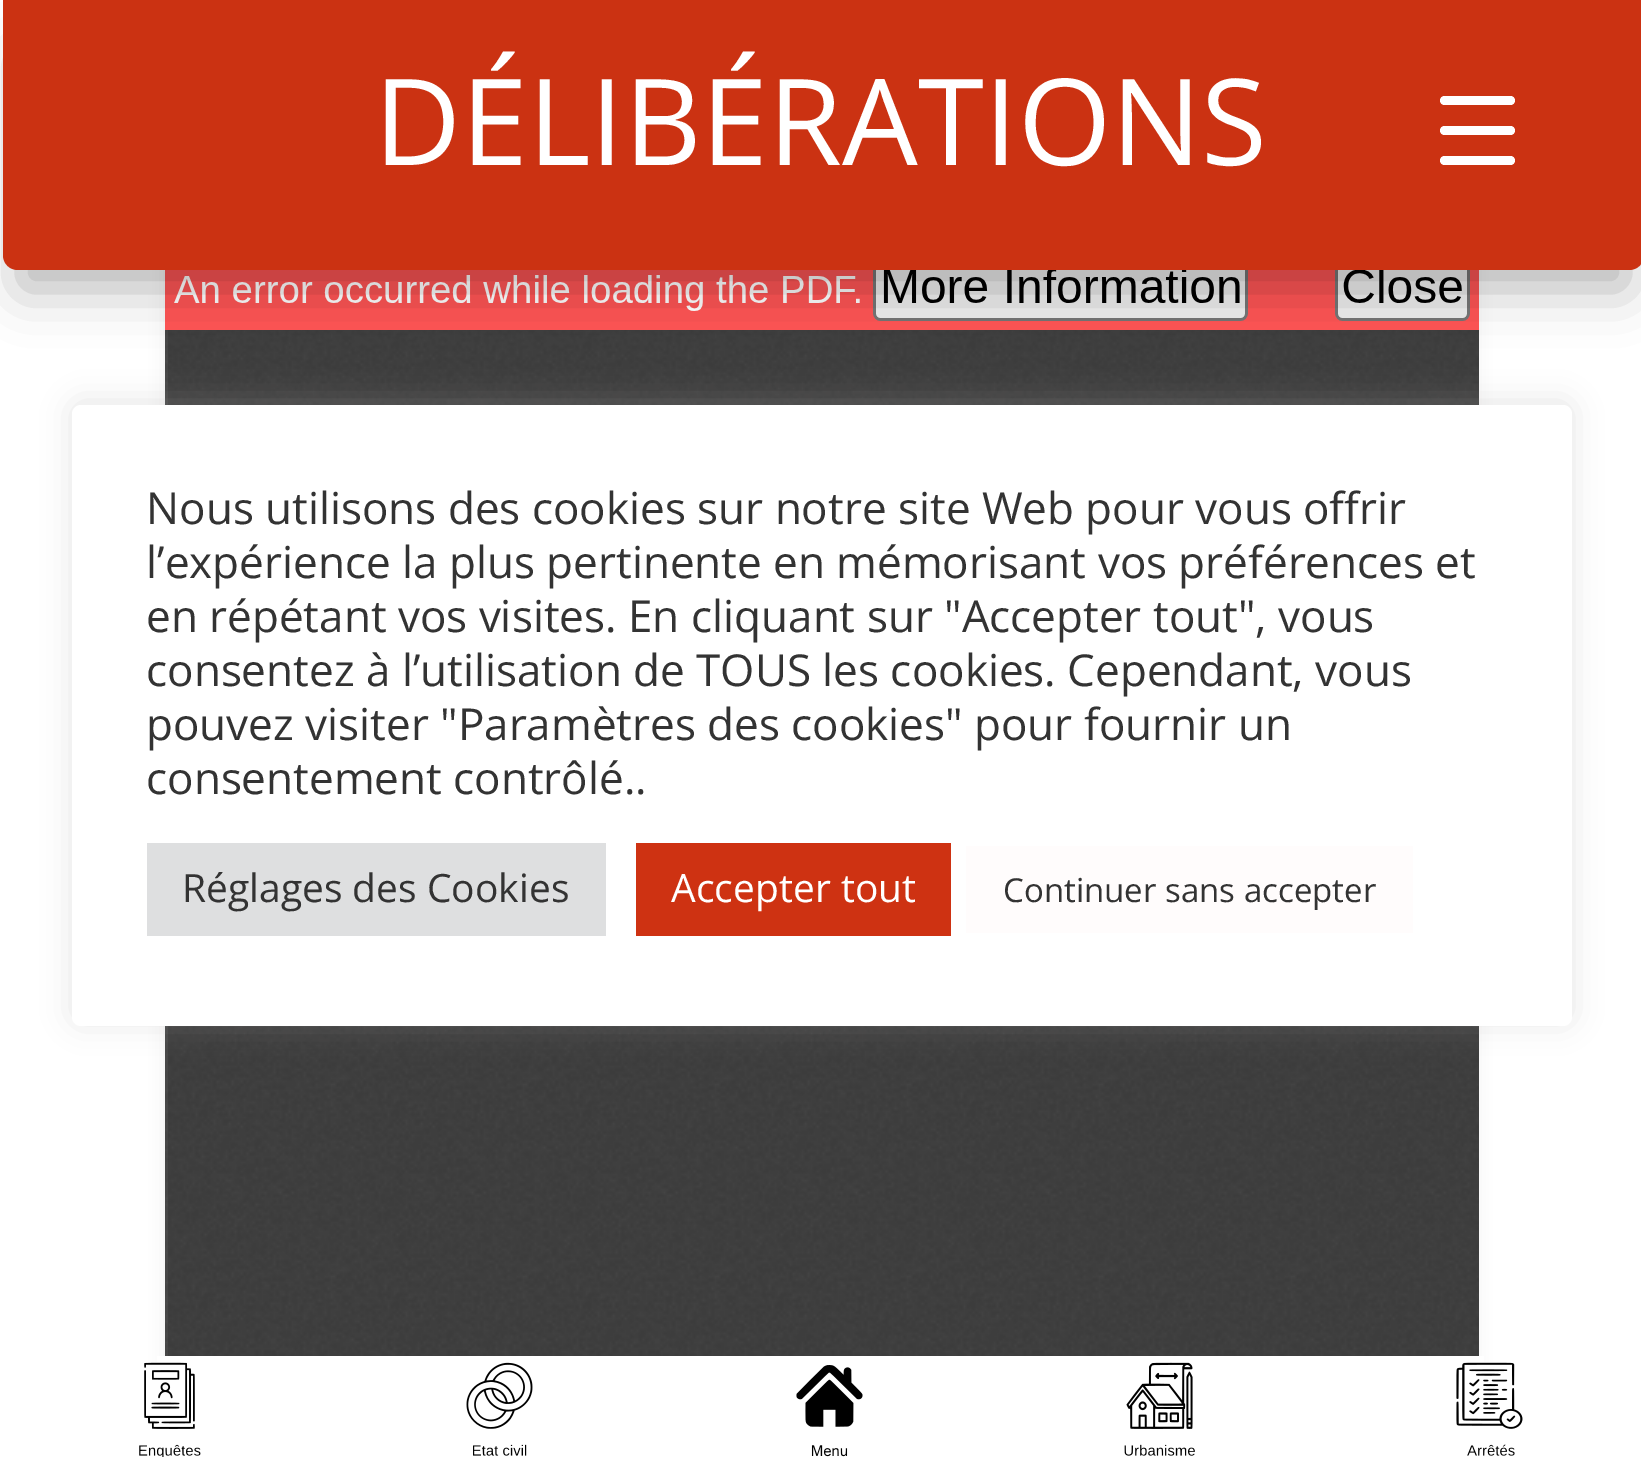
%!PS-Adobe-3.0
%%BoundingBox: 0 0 1641 1457
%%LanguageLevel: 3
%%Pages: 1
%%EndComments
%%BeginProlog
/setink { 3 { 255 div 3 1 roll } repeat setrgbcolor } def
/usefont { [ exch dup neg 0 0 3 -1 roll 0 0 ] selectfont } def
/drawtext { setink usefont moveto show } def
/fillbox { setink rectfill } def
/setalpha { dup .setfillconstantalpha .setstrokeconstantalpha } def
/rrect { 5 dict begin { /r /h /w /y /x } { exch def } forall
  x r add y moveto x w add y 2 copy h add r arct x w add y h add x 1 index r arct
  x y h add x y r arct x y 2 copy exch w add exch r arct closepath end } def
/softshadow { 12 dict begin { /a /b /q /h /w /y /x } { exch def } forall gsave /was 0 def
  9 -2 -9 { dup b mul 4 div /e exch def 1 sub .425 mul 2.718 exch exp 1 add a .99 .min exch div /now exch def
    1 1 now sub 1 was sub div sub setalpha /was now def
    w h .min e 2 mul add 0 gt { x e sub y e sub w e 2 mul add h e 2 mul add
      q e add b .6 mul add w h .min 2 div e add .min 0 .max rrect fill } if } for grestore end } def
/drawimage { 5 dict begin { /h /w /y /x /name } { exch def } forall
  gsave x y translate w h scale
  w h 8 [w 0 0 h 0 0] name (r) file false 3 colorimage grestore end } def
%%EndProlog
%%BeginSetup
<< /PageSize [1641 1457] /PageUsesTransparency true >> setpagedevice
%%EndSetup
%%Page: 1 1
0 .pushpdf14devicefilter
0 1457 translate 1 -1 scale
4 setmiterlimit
0 0 1641 1457 255 255 255 fillbox
238 238 238 setink
165 144 1311 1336 0 7.5 1 softshadow
157 255 1327 15 255 255 255 fillbox
(assets/img6.rgb) 165 270 1314 1086 drawimage
gsave
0 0 moveto 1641 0 lineto 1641 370 lineto 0 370 lineto closepath 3 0 moveto 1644 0 lineto 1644 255 lineto 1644 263.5 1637.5 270 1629 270 curveto 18 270 lineto 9.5 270 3 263.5 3 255 curveto closepath eoclip newpath
0 0 0 setink
21 54 1605 234 0 27 0.3 softshadow
grestore
203 50 18 setink
3 0 moveto 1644 0 lineto 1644 255 lineto 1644 263.5 1637.5 270 1629 270 curveto 18 270 lineto 9.5 270 3 263.5 3 255 curveto closepath fill
(DÉLIBÉRATIONS) 374 165 /OpenSans-Regular 120 255 255 255 drawtext
157 1356 1327 101 255 255 255 fillbox
(assets/img1.rgb) 139 1362 62 95 drawimage
(assets/img2.rgb) 466 1362 67 94 drawimage
(assets/img3.rgb) 796 1365 67 92 drawimage
(assets/img4.rgb) 1124 1362 71 94 drawimage
(assets/img5.rgb) 1456 1362 67 94 drawimage
1440 126 75 9 4.5 rrect fill
1440 96 75 9 4.5 rrect fill
1440 156 75 9 4.5 rrect fill
172 171 171 setink
72 402 1500 621 9 15 0.3 softshadow
255 255 255 setink
72 405 1500 621 9 rrect fill
(Nous utilisons des cookies sur notre site Web pour vous offrir) 146 524 /OpenSans-Regular 44 51 51 51 drawtext
(l’expérience la plus pertinente en mémorisant vos préférences et) 146 578 /OpenSans-Regular 44 51 51 51 drawtext
(en répétant vos visites. En cliquant sur "Accepter tout", vous) 146 632 /OpenSans-Regular 44 51 51 51 drawtext
(consentez à l’utilisation de TOUS les cookies. Cependant, vous) 146 686 /OpenSans-Regular 44 51 51 51 drawtext
(pouvez visiter "Paramètres des cookies" pour fournir un) 146 740 /OpenSans-Regular 44 51 51 51 drawtext
(consentement contrôlé..) 146 794 /OpenSans-Regular 44 51 51 51 drawtext
147 843 459 93 222 223 224 fillbox
(Réglages des Cookies) 182 902 /OpenSans-Regular 39 51 51 51 drawtext
636 843 315 93 206 50 18 fillbox
(Accepter tout) 671 902 /OpenSans-Regular 39 255 255 255 drawtext
966 846 447 87 255 252 252 fillbox
(Continuer sans accepter) 1003 902 /OpenSans-Regular 33 51 51 51 drawtext
.poppdf14devicefilter showpage
%%EOF
